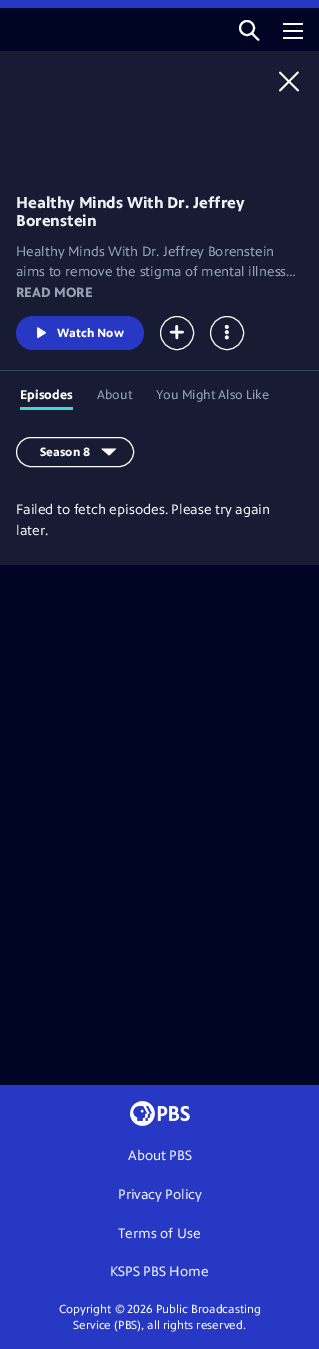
%!PS-Adobe-3.0
%%BoundingBox: 0 0 319 1349
%%LanguageLevel: 3
%%Pages: 1
%%EndComments
%%BeginProlog
/setink { 3 { 255 div 3 1 roll } repeat setrgbcolor } def
/usefont { [ exch dup neg 0 0 3 -1 roll 0 0 ] selectfont } def
/drawtext { setink usefont moveto show } def
/fillbox { setink rectfill } def
/disc { newpath 0 360 arc closepath } def
/rrect { 5 dict begin { /r /h /w /y /x } { exch def } forall
  x r add y moveto x w add y 2 copy h add r arct x w add y h add x 1 index r arct
  x y h add x y r arct x y 2 copy exch w add exch r arct closepath end } def
/drawimage { 5 dict begin { /h /w /y /x /name } { exch def } forall
  gsave x y translate w h scale
  w h 8 [w 0 0 h 0 0] name (r) file false 3 colorimage grestore end } def
%%EndProlog
%%BeginSetup
<< /PageSize [319 1349] >> setpagedevice
%%EndSetup
%%Page: 1 1
0 1349 translate 1 -1 scale
4 setmiterlimit
0 0 319 1349 0 5 37 fillbox
0 0 319 8 38 56 196 fillbox
255 255 255 setink
2 setlinewidth
247 28 7 disc stroke
257.5 40.5 moveto 250.5 33.5 lineto 251 32.5 lineto 252 31 254 34 254.5 34.5 curveto 259.5 39.5 lineto 259.5 40.5 258.5 41 257.5 40.5 curveto closepath fill
283 23 20 2 1 rrect fill
283 30 20 2 1 rrect fill
283 37 20 2 1 rrect fill
0 51 319 514 23 27 51 fillbox
(assets/img1.rgb) 279 71 20 21 drawimage
(Healthy Minds With Dr. Jeffrey) 16 208 /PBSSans-Bold 16 238 240 245 drawtext
(Borenstein) 16 226 /PBSSans-Bold 16 238 240 245 drawtext
(Healthy Minds With Dr. Jeffrey Borenstein) 16 256 /PBSSans-Regular 13.8 148 161 178 drawtext
(aims to remove the stigma of mental illness…) 16 276 /PBSSans-Regular 13.8 148 161 178 drawtext
(READ MORE) 16 297 /PBSSans-Bold 13.8 148 161 178 drawtext
38 56 196 setink
16 316 128 34 17 rrect fill
(assets/img2.rgb) 37 327 9 11 drawimage
(Watch Now) 57 337 /PBSSans-Bold 12.25 255 255 255 drawtext
1 setlinewidth
177 333 16.5 disc stroke
(assets/img3.rgb) 169 325 15 15 drawimage
227 333 16.5 disc stroke
(assets/img4.rgb) 224 325 5 15 drawimage
0 370 319 1 58 69 92 fillbox
(Episodes) 20 399 /PBSSans-Bold 13 255 255 255 drawtext
20 407 53 3 70 212 205 fillbox
(About) 97 399 /PBSSans-Regular 13 148 161 178 drawtext
(You Might Also Like) 156 399 /PBSSans-Regular 13 148 161 178 drawtext
255 255 255 setink
109 455.5 moveto 101.5 449 lineto 101.5 448.5 lineto 116.5 448.5 lineto 111.5 453.5 lineto closepath fill
16.5 437.5 117 29 14.5 rrect stroke
(Season 8) 40 456 /PBSSans-Bold 12.25 255 255 255 drawtext
(Failed to fetch episodes. Please try again) 16 514 /PBSSans-Regular 14 238 240 245 drawtext
(later.) 16 535 /PBSSans-Regular 14 238 240 245 drawtext
0 1085 319 264 38 56 196 fillbox
(assets/img5.rgb) 130 1101 60 25 drawimage
(About PBS) 128 1160 /PBSSans-Regular 14 238 240 245 drawtext
(Privacy Policy) 118 1199 /PBSSans-Regular 14 238 240 245 drawtext
(Terms of Use) 118 1238 /PBSSans-Regular 14 238 240 245 drawtext
(KSPS PBS Home) 110 1276 /PBSSans-Regular 14 238 240 245 drawtext
(Copyright © 2026 Public Broadcasting) 59 1313 /PBSSans-Regular 12 246 248 250 drawtext
(Service \(PBS\), all rights reserved.) 73 1329 /PBSSans-Regular 12 246 248 250 drawtext
showpage
%%EOF
